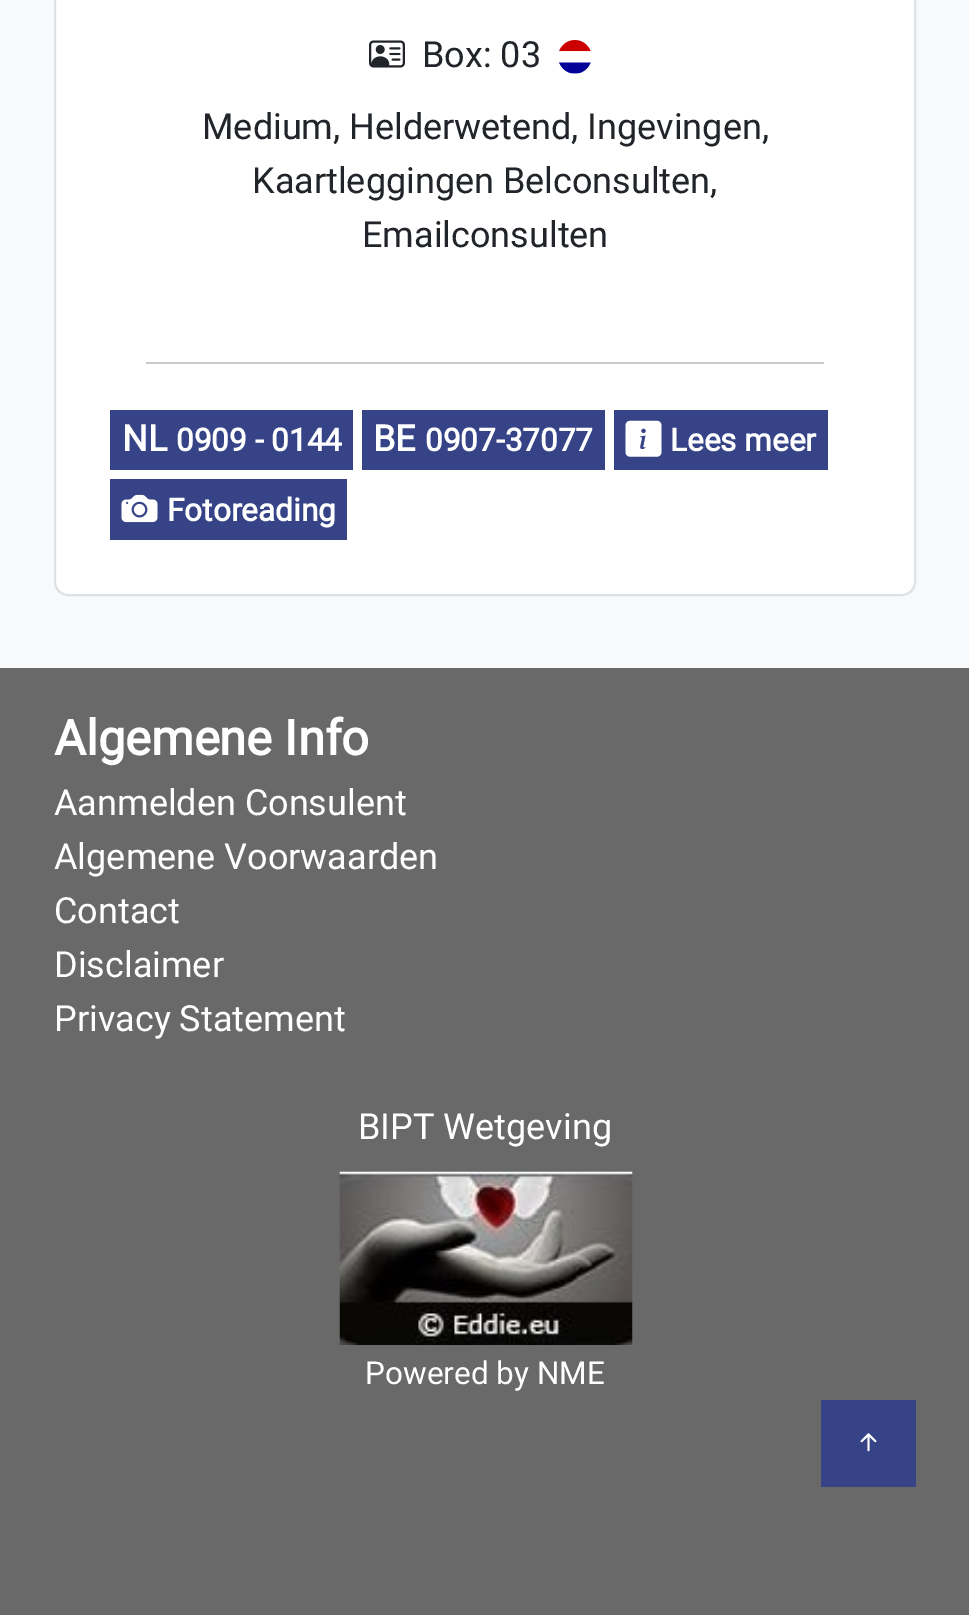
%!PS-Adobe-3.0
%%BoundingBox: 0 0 969 1615
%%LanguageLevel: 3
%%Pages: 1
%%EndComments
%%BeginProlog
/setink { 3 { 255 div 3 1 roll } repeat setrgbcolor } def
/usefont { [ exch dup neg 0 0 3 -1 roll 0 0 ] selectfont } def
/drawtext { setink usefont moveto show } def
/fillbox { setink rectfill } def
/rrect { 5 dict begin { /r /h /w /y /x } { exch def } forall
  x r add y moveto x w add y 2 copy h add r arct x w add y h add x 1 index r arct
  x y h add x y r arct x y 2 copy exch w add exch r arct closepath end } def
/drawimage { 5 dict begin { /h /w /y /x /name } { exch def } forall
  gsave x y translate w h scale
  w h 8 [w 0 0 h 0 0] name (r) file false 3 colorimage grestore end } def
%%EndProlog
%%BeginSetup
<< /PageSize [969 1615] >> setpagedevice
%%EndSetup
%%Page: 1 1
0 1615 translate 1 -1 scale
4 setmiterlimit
0 0 969 1615 248 249 250 fillbox
255 255 255 setink
55 -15 860 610 13 rrect gsave fill grestore
222 226 230 setink
2 setlinewidth
stroke
(assets/img1.rgb) 369 40 36 28 drawimage
(Box: 03) 422 67 /Roboto-Regular 36 33 37 41 drawtext
(assets/img2.rgb) 558 40 33 34 drawimage
(Medium, Helderwetend, Ingevingen,) 202 139 /Roboto-Regular 36 33 37 41 drawtext
(Kaartleggingen Belconsulten,) 252 193 /Roboto-Regular 36 33 37 41 drawtext
(Emailconsulten) 362 247 /Roboto-Regular 36 33 37 41 drawtext
146 362 678 2 200 201 202 fillbox
110 410 243 60 54 67 135 fillbox
(NL) 122 451 /Roboto-Bold 36 255 255 255 drawtext
(0909 - 0144) 176 451 /Roboto-Bold 31.5 255 255 255 drawtext
362 410 243 60 54 67 135 fillbox
(BE) 373 451 /Roboto-Bold 36 255 255 255 drawtext
(0907-37077) 425 451 /Roboto-Bold 31.5 255 255 255 drawtext
614 410 214 60 54 67 135 fillbox
(assets/img3.rgb) 625 420 37 37 drawimage
(Lees meer) 670 451 /Roboto-Bold 31.5 255 255 255 drawtext
110 479 237 61 54 67 135 fillbox
(assets/img4.rgb) 121 494 37 29 drawimage
(Fotoreading) 167 521 /Roboto-Bold 31.5 255 255 255 drawtext
0 668 969 947 105 105 105 fillbox
(Algemene Info) 54 755 /Roboto-Bold 48.75 255 255 255 drawtext
(Aanmelden Consulent) 54 815 /Roboto-Regular 36 255 255 255 drawtext
(Algemene Voorwaarden) 54 869 /Roboto-Regular 36 255 255 255 drawtext
(Contact) 54 923 /Roboto-Regular 36 255 255 255 drawtext
(Disclaimer) 54 977 /Roboto-Regular 36 255 255 255 drawtext
(Privacy Statement) 54 1031 /Roboto-Regular 36 255 255 255 drawtext
(BIPT Wetgeving) 358 1139 /Roboto-Regular 36 255 255 255 drawtext
(assets/img5.rgb) 339 1171 294 174 drawimage
(Powered by NME) 365 1384 /Roboto-Regular 31.5 255 255 255 drawtext
821 1400 95 87 54 67 135 fillbox
(assets/img6.rgb) 860 1433 17 19 drawimage
showpage
%%EOF
